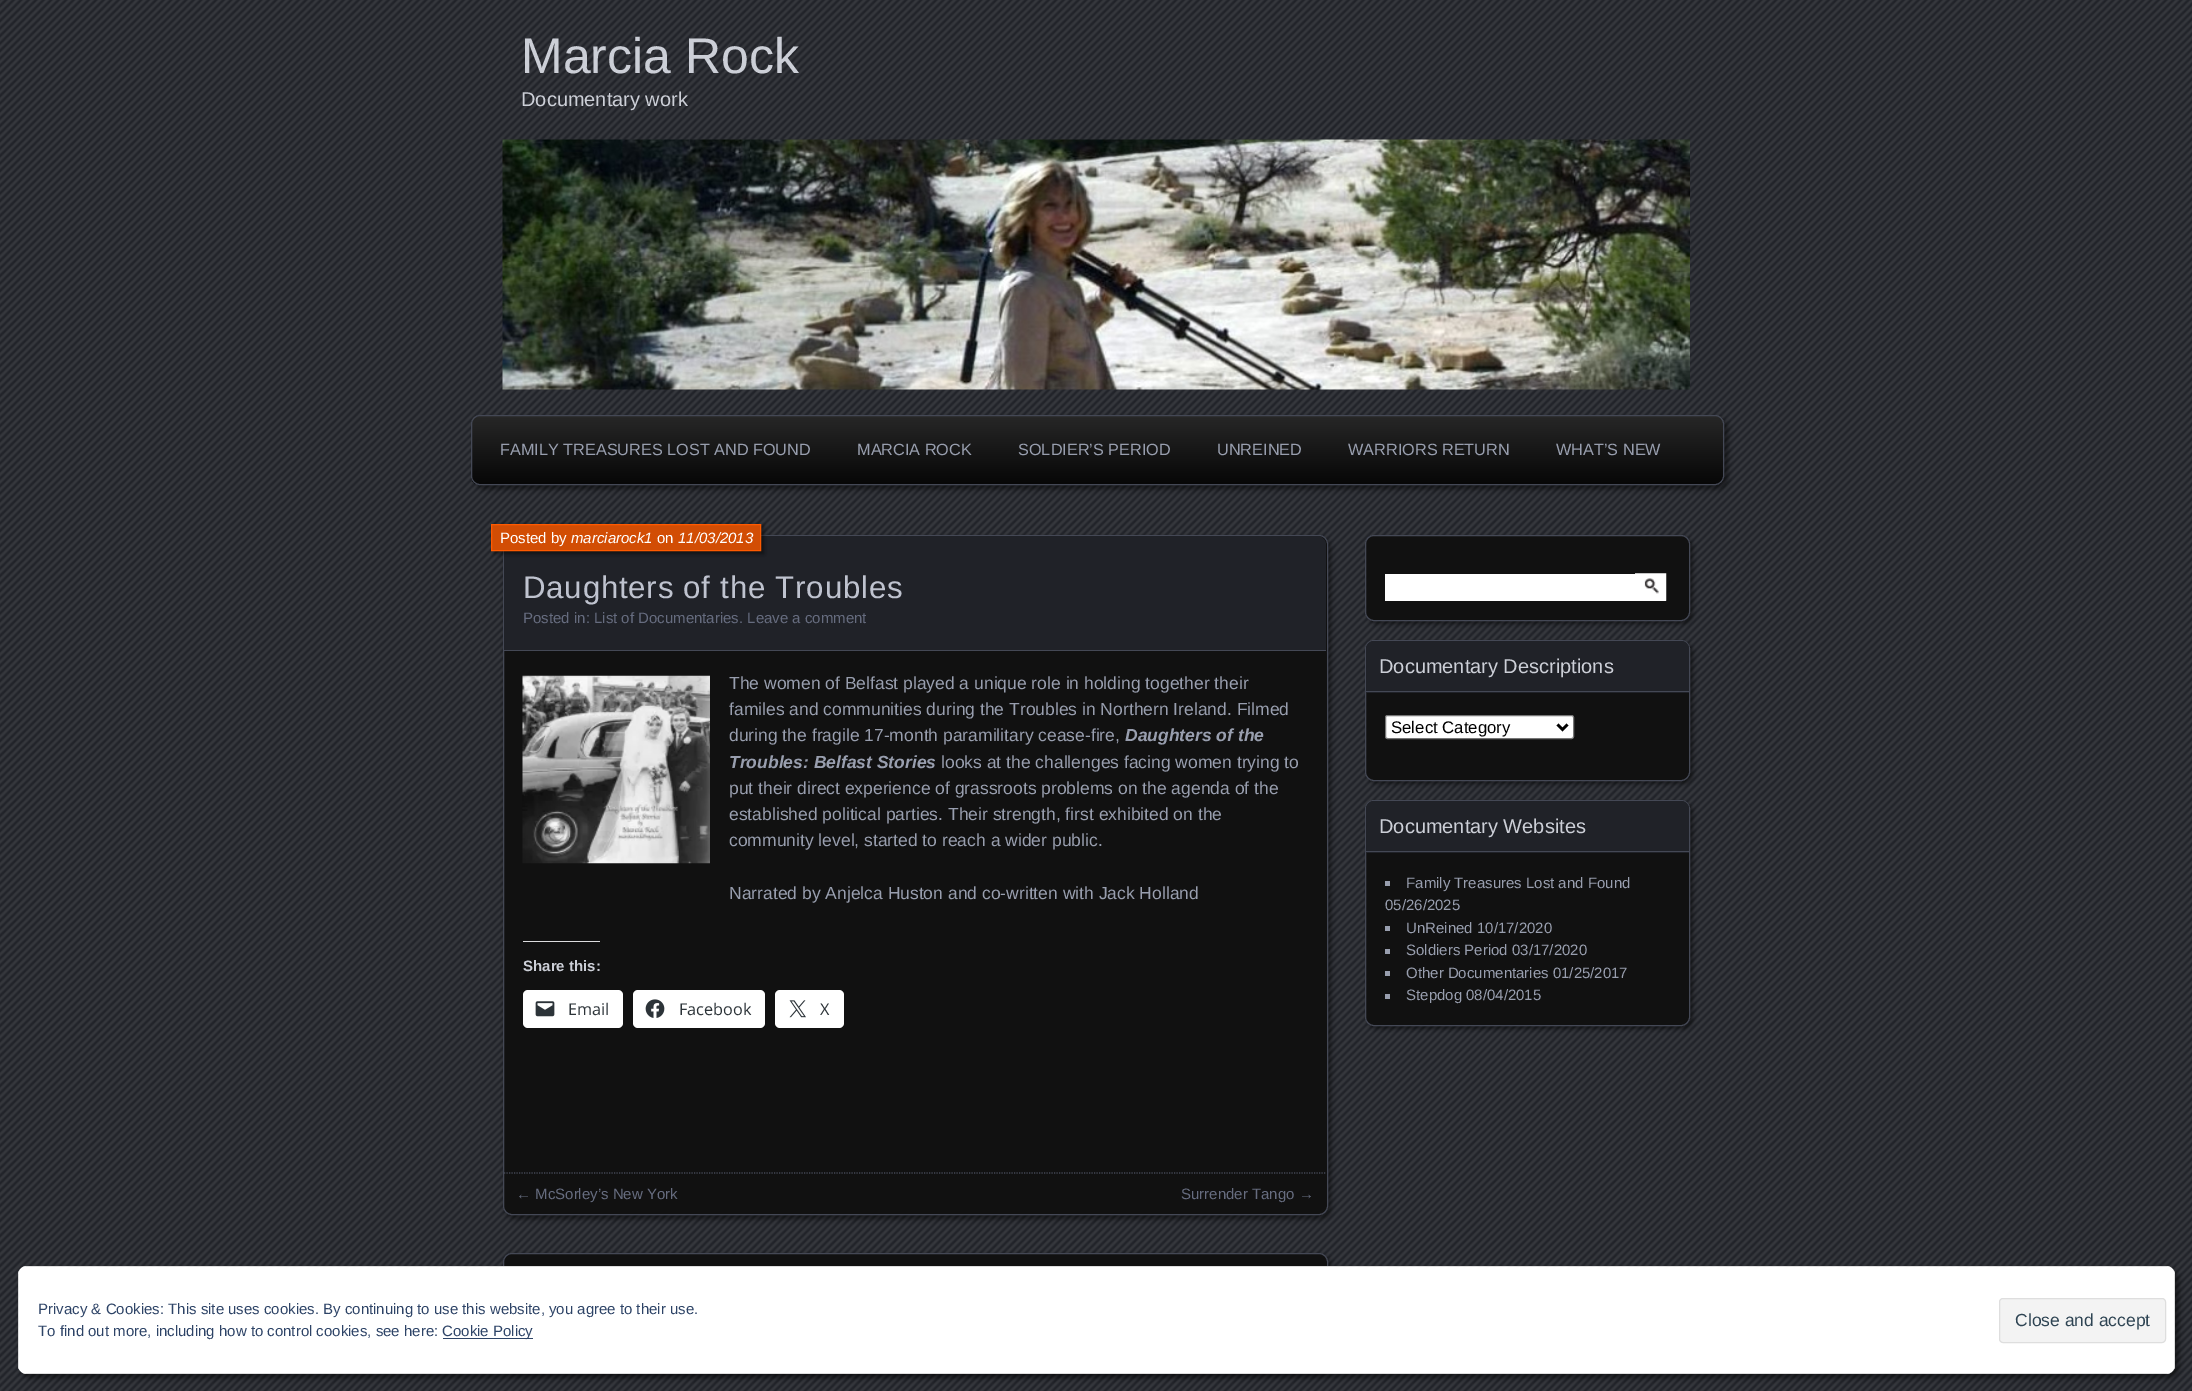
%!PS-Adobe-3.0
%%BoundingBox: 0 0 2192 1391
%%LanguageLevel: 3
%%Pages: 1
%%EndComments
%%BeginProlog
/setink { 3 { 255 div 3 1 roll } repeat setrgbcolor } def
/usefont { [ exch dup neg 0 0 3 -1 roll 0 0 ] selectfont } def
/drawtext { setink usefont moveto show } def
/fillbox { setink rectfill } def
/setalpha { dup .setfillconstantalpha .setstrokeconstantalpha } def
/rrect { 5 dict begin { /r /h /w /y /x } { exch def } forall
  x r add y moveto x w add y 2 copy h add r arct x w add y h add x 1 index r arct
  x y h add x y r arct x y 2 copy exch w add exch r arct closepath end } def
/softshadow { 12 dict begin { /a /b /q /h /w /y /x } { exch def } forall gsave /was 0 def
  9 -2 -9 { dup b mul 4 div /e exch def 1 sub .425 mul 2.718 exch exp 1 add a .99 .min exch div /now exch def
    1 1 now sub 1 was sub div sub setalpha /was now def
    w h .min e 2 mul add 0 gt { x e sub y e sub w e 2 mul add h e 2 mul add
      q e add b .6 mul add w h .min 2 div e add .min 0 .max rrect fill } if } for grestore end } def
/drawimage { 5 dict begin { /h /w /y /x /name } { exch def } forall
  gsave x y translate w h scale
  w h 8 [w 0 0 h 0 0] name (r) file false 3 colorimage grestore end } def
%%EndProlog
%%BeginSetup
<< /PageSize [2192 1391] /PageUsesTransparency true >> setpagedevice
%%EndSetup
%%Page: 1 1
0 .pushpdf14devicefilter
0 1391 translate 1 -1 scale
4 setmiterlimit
0 0 2192 1391 32 34 40 fillbox
(assets/img1.rgb) 0 0 2192 1391 drawimage
(Marcia Rock) 521 73 /LiberationSans-Regular 50 204 207 215 drawtext
(Documentary work) 521 106 /LiberationSans-Regular 20 204 207 215 drawtext
(assets/img2.rgb) 502 139 1188 251 drawimage
0 0 0 setink
475 419 1253 70 9 2.5 0.45 softshadow
gsave
471 415 1253 70 9 rrect clip newpath
gsave 471 416 moveto 1724 416 lineto 1724 484 lineto 471 484 lineto closepath clip newpath
<< /ShadingType 2 /ColorSpace /DeviceRGB /Coords [1098 416 1098 484] /Extend [true true] /Function << /FunctionType 3 /Domain [0 1] /Functions [<< /FunctionType 2 /Domain [0 1] /C0 [0.153 0.153 0.153] /C1 [0.153 0.153 0.153] /N 1 >> << /FunctionType 2 /Domain [0 1] /C0 [0.153 0.153 0.153] /C1 [0.027 0.027 0.027] /N 1 >>] /Bounds [0.01] /Encode [0 1 0 1] >> >> shfill grestore
grestore
68 72 85 setink
471.5 415.5 1252 69 8.5 rrect stroke
(FAMILY TREASURES LOST AND FOUND) 500 455 /LiberationSans-Regular 16.25 152 158 174 drawtext
(MARCIA ROCK) 857 455 /LiberationSans-Regular 16.25 152 158 174 drawtext
(SOLDIER’S PERIOD) 1018 455 /LiberationSans-Regular 16.25 152 158 174 drawtext
(UNREINED) 1217 455 /LiberationSans-Regular 16.25 152 158 174 drawtext
(WARRIORS RETURN) 1348 455 /LiberationSans-Regular 16.25 152 158 174 drawtext
(WHAT’S NEW) 1556 455 /LiberationSans-Regular 16.25 152 158 174 drawtext
0 0 0 setink
506 539 825 680 9 2.5 0.45 softshadow
17 17 17 setink
503.5 535.5 824 679 8.5 rrect gsave fill grestore
68 72 85 setink
stroke
32 34 40 setink
513 536 moveto 1317 536 lineto 1322 536 1326 540 1326 545 curveto 1326 651 lineto 504 651 lineto 504 545 lineto 504 540 508 536 513 536 curveto closepath fill
504 650 822 1 68 72 85 fillbox
0 0 0 setink
494 526 270 28 0 2 0.45 softshadow
210 77 4 setink
491.5 524.5 moveto 760.5 524.5 lineto 760.5 550.5 lineto 491.5 550.5 lineto closepath gsave fill grestore
255 90 0 setink
stroke
(Posted by) 500 543 /LiberationSans-Regular 15 255 255 255 drawtext
(marciarock1) 571 543 /LiberationSans-Italic 15 255 255 255 drawtext
(on) 657 543 /LiberationSans-Regular 15 255 255 255 drawtext
(11/03/2013) 678 543 /LiberationSans-Italic 15 255 255 255 drawtext
/LiberationSans-Regular 31.25 usefont
191 195 207 setink
523 598 moveto 0.75 0 (Daughters of the Troubles) ashow
(Posted in: List of Documentaries. Leave a comment) 523 623 /LiberationSans-Regular 15 102 108 127 drawtext
(assets/img3.rgb) 522 675 188 189 drawimage
(The women of Belfast played a unique role in holding together their) 729 689 /LiberationSans-Regular 17.5 152 158 174 drawtext
(familes and communities during the Troubles in Northern Ireland. Filmed) 729 715 /LiberationSans-Regular 17.5 152 158 174 drawtext
(during the fragile 17-month paramilitary cease-fire,) 729 741 /LiberationSans-Regular 17.5 152 158 174 drawtext
(Daughters of the) 1125 741 /LiberationSans-BoldItalic 17.5 152 158 174 drawtext
(Troubles: Belfast Stories) 729 768 /LiberationSans-BoldItalic 17.5 152 158 174 drawtext
(looks at the challenges facing women trying to) 941 768 /LiberationSans-Regular 17.5 152 158 174 drawtext
(put their direct experience of grassroots problems on the agenda of the) 729 794 /LiberationSans-Regular 17.5 152 158 174 drawtext
(established political parties. Their strength, first exhibited on the) 729 820 /LiberationSans-Regular 17.5 152 158 174 drawtext
(community level, started to reach a wider public.) 729 846 /LiberationSans-Regular 17.5 152 158 174 drawtext
(Narrated by Anjelca Huston and co-written with Jack Holland) 729 899 /LiberationSans-Regular 17.5 152 158 174 drawtext
523 941 77 1 220 220 222 fillbox
(Share this:) 523 971 /LiberationSans-Bold 15 204 207 215 drawtext
255 255 255 setink
523 990 100 38 5 rrect fill
(assets/img4.rgb) 535 1001 20 16 drawimage
(Email) 568 1015 /OpenSans-Regular 16.25 44 51 56 drawtext
255 255 255 setink
633 990 132 38 5 rrect fill
(assets/img5.rgb) 645 999 20 19 drawimage
(Facebook) 679 1015 /OpenSans-Regular 16.25 44 51 56 drawtext
255 255 255 setink
775 990 69 38 5 rrect fill
(assets/img6.rgb) 789 1000 17 18 drawimage
(X) 820 1015 /OpenSans-Regular 16.25 44 51 56 drawtext
68 72 85 setink
1.2 setlinewidth
[1.25 1.25] 0 setdash
504 1173 moveto 1326 1173 lineto stroke
(← McSorley’s New York) 516 1199 /LiberationSans-Regular 15 102 108 127 drawtext
(Surrender Tango →) 1181 1199 /LiberationSans-Regular 15 102 108 127 drawtext
0 0 0 setink
506 1256 825 118 9 2.5 0.45 softshadow
17 17 17 setink
503.5 1253.5 824 116 8.5 rrect gsave fill grestore
68 72 85 setink
1 setlinewidth
[] 0 setdash
stroke
0 0 0 setink
1368 538 325 86 9 2 0.45 softshadow
17 17 17 setink
1365.5 535.5 324 85 8.5 rrect gsave fill grestore
68 72 85 setink
stroke
1385 574 281 27 255 255 255 fillbox
(assets/img7.rgb) 1635 573 32 28 drawimage
0 0 0 setink
1368 643 325 141 9 2 0.45 softshadow
17 17 17 setink
1365.5 640.5 324 140 8.5 rrect gsave fill grestore
68 72 85 setink
stroke
32 34 40 setink
1374 641 moveto 1681 641 lineto 1685.5 641 1689 644.5 1689 649 curveto 1689 693 lineto 1366 693 lineto 1366 649 lineto 1366 644.5 1369.5 641 1374 641 curveto closepath fill
1366 691 323 1 68 72 85 fillbox
(Documentary Descriptions) 1379 673 /LiberationSans-Regular 20 204 207 215 drawtext
255 255 255 setink
1385.5 715.5 188 23 2 rrect gsave fill grestore
118 118 118 setink
stroke
0 0 0 setink
2.5 setlinewidth
1557.5 724.5 moveto 1562.5 729.5 lineto 1567.5 724.5 lineto stroke
(Select Category) 1391 733 /LiberationSans-Regular 16.75 0 0 0 drawtext
1368 803 325 226 9 2 0.45 softshadow
17 17 17 setink
1365.5 800.5 324 225 8.5 rrect gsave fill grestore
68 72 85 setink
1 setlinewidth
stroke
32 34 40 setink
1374 801 moveto 1681 801 lineto 1685.5 801 1689 804.5 1689 809 curveto 1689 853 lineto 1366 853 lineto 1366 809 lineto 1366 804.5 1369.5 801 1374 801 curveto closepath fill
1366 851 323 1 68 72 85 fillbox
(Documentary Websites) 1379 833 /LiberationSans-Regular 20 204 207 215 drawtext
1385 881 5 5 152 158 174 fillbox
(Family Treasures Lost and Found) 1406 888 /LiberationSans-Regular 15 152 158 174 drawtext
(05/26/2025) 1385 910 /LiberationSans-Regular 15 152 158 174 drawtext
1385 926 5 5 152 158 174 fillbox
(UnReined 10/17/2020) 1406 933 /LiberationSans-Regular 15 152 158 174 drawtext
1385 949 5 5 152 158 174 fillbox
(Soldiers Period 03/17/2020) 1406 955 /LiberationSans-Regular 15 152 158 174 drawtext
1385 971 5 5 152 158 174 fillbox
(Other Documentaries 01/25/2017) 1406 978 /LiberationSans-Regular 15 152 158 174 drawtext
1385 994 5 5 152 158 174 fillbox
(Stepdog 08/04/2015) 1406 1000 /LiberationSans-Regular 15 152 158 174 drawtext
0 0 0 setink
21 1270 2158 108 9 2.5 0.45 softshadow
255 255 255 setink
18 1266 2157 108 9 rrect fill
222 222 222 setink
18 1275 moveto 18 1365 lineto 18 1366 18 1368 19 1369 curveto 19 1271 lineto closepath 27 1266 moveto 23 1267 lineto 2170 1267 lineto 2166 1266 lineto closepath 2175 1275 moveto 2174 1271 lineto 2174 1369 lineto 2175 1368 2175 1366 2175 1365 curveto closepath 2166 1374 moveto 2170 1373 lineto 23 1373 lineto 27 1374 lineto closepath eofill
(Privacy & Cookies: This site uses cookies. By continuing to use this website, you agree to their use.) 38 1314 /LiberationSans-Regular 15 46 68 103 drawtext
243 243 243 setink
1999.5 1298.5 166 44 3.5 rrect gsave fill grestore
222 222 222 setink
stroke
(Close and accept) 2015 1326 /LiberationSans-Regular 17.5 46 68 83 drawtext
(To find out more, including how to control cookies, see here:) 38 1336 /LiberationSans-Regular 15 46 68 103 drawtext
443 1338 90 1 46 68 103 fillbox
(Cookie Policy) 442 1336 /LiberationSans-Regular 15 46 68 103 drawtext
.poppdf14devicefilter showpage
%%EOF
